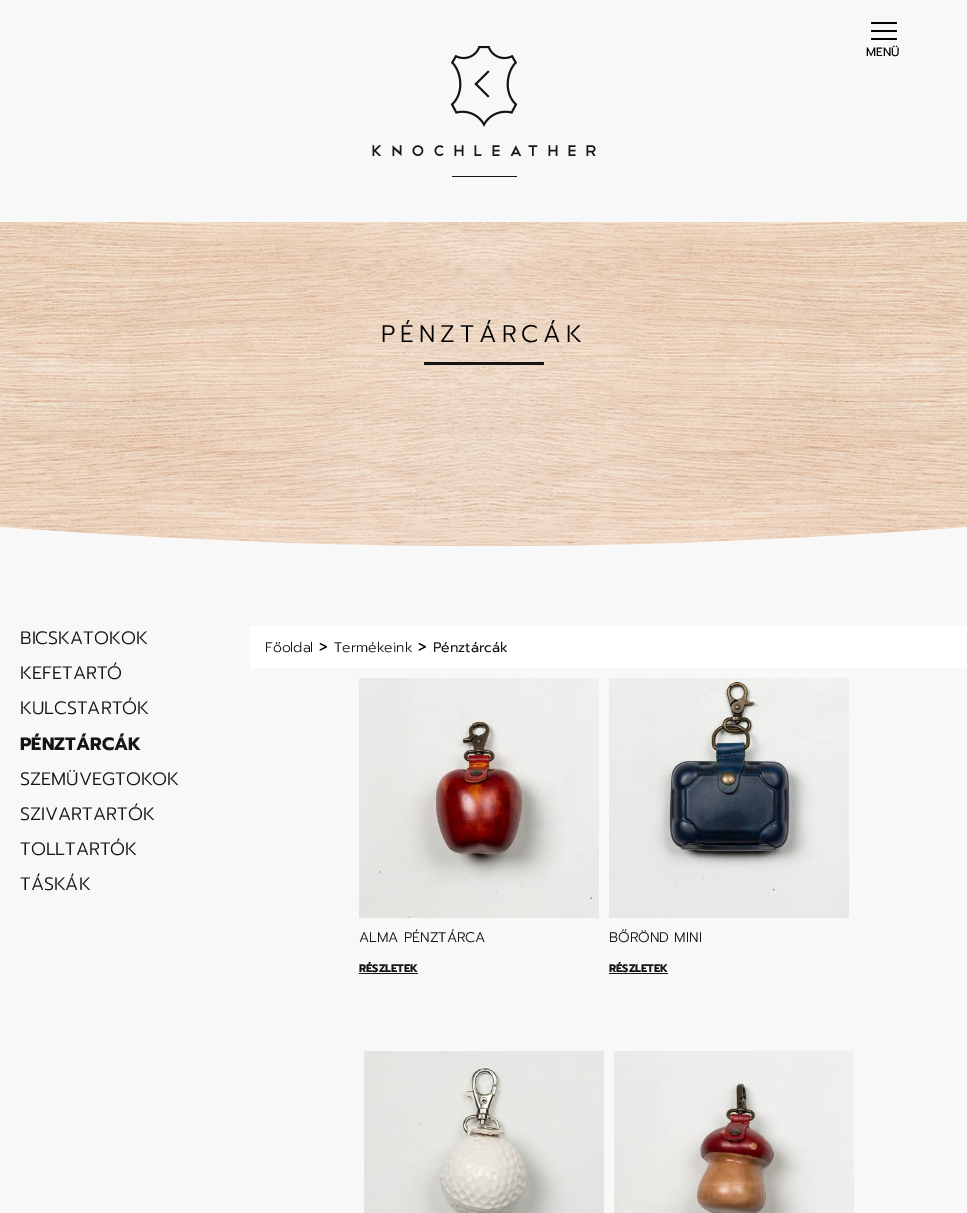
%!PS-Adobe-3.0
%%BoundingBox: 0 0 967 1213
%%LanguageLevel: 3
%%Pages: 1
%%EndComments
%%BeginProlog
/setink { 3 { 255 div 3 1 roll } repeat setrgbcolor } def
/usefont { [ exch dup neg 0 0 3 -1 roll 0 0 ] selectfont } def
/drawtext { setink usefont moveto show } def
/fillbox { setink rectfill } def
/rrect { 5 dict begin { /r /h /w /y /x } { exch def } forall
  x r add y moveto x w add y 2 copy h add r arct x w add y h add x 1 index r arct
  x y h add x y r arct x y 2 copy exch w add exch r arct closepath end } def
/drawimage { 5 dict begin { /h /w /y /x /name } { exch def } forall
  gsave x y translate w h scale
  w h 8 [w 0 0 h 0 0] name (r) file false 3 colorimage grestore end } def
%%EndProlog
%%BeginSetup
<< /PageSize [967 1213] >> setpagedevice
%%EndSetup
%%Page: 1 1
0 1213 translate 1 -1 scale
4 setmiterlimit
0 0 967 1213 248 248 248 fillbox
(assets/img1.rgb) 372 46 224 131 drawimage
0 0 0 setink
871 30 26 2 1 rrect fill
871 22 26 2 1 rrect fill
871 38 26 2 1 rrect fill
(MENÜ) 866 56 /Prompt-Regular 12 0 0 0 drawtext
(assets/img2.rgb) 0 222 967 324 drawimage
/Prompt-Light 24 usefont
381 342 moveto 5 0 (PÉNZTÁRCÁK) ashow
424 362 120 3 21 21 21 fillbox
(BICSKATOKOK) 20 644 /Prompt-Light 18 21 21 21 drawtext
(KEFETARTÓ) 20 679 /Prompt-Light 18 21 21 21 drawtext
(KULCSTARTÓK) 20 714 /Prompt-Light 18 21 21 21 drawtext
(PÉNZTÁRCÁK) 20 750 /Prompt-Bold 18 21 21 21 drawtext
(SZEMÜVEGTOKOK) 20 785 /Prompt-Light 18 21 21 21 drawtext
(SZIVARTARTÓK) 20 820 /Prompt-Light 18 21 21 21 drawtext
(TOLLTARTÓK) 20 855 /Prompt-Light 18 21 21 21 drawtext
(TÁSKÁK) 20 890 /Prompt-Light 18 21 21 21 drawtext
250 626 717 42 255 255 255 fillbox
(Főoldal) 265 652 /Prompt-Light 14 21 21 21 drawtext
(>) 319 652 /Prompt-Regular 16 0 0 0 drawtext
(Termékeink) 334 652 /Prompt-Light 14 21 21 21 drawtext
(>) 418 652 /Prompt-Regular 16 0 0 0 drawtext
(Pénztárcák) 433 652 /Prompt-Regular 14 21 21 21 drawtext
(assets/img3.rgb) 359 678 240 240 drawimage
(ALMA PÉNZTÁRCA) 359 942 /Prompt-Light 14 21 21 21 drawtext
(RÉSZLETEK) 359 972 /Prompt-Bold 11 21 21 21 drawtext
359 973 59 1 21 21 21 fillbox
(assets/img4.rgb) 609 678 240 240 drawimage
(BŐRÖND MINI) 609 942 /Prompt-Light 14 21 21 21 drawtext
(RÉSZLETEK) 609 972 /Prompt-Bold 11 21 21 21 drawtext
609 973 59 1 21 21 21 fillbox
(assets/img5.rgb) 364 1051 240 162 drawimage
(assets/img6.rgb) 614 1051 240 162 drawimage
showpage
%%EOF
